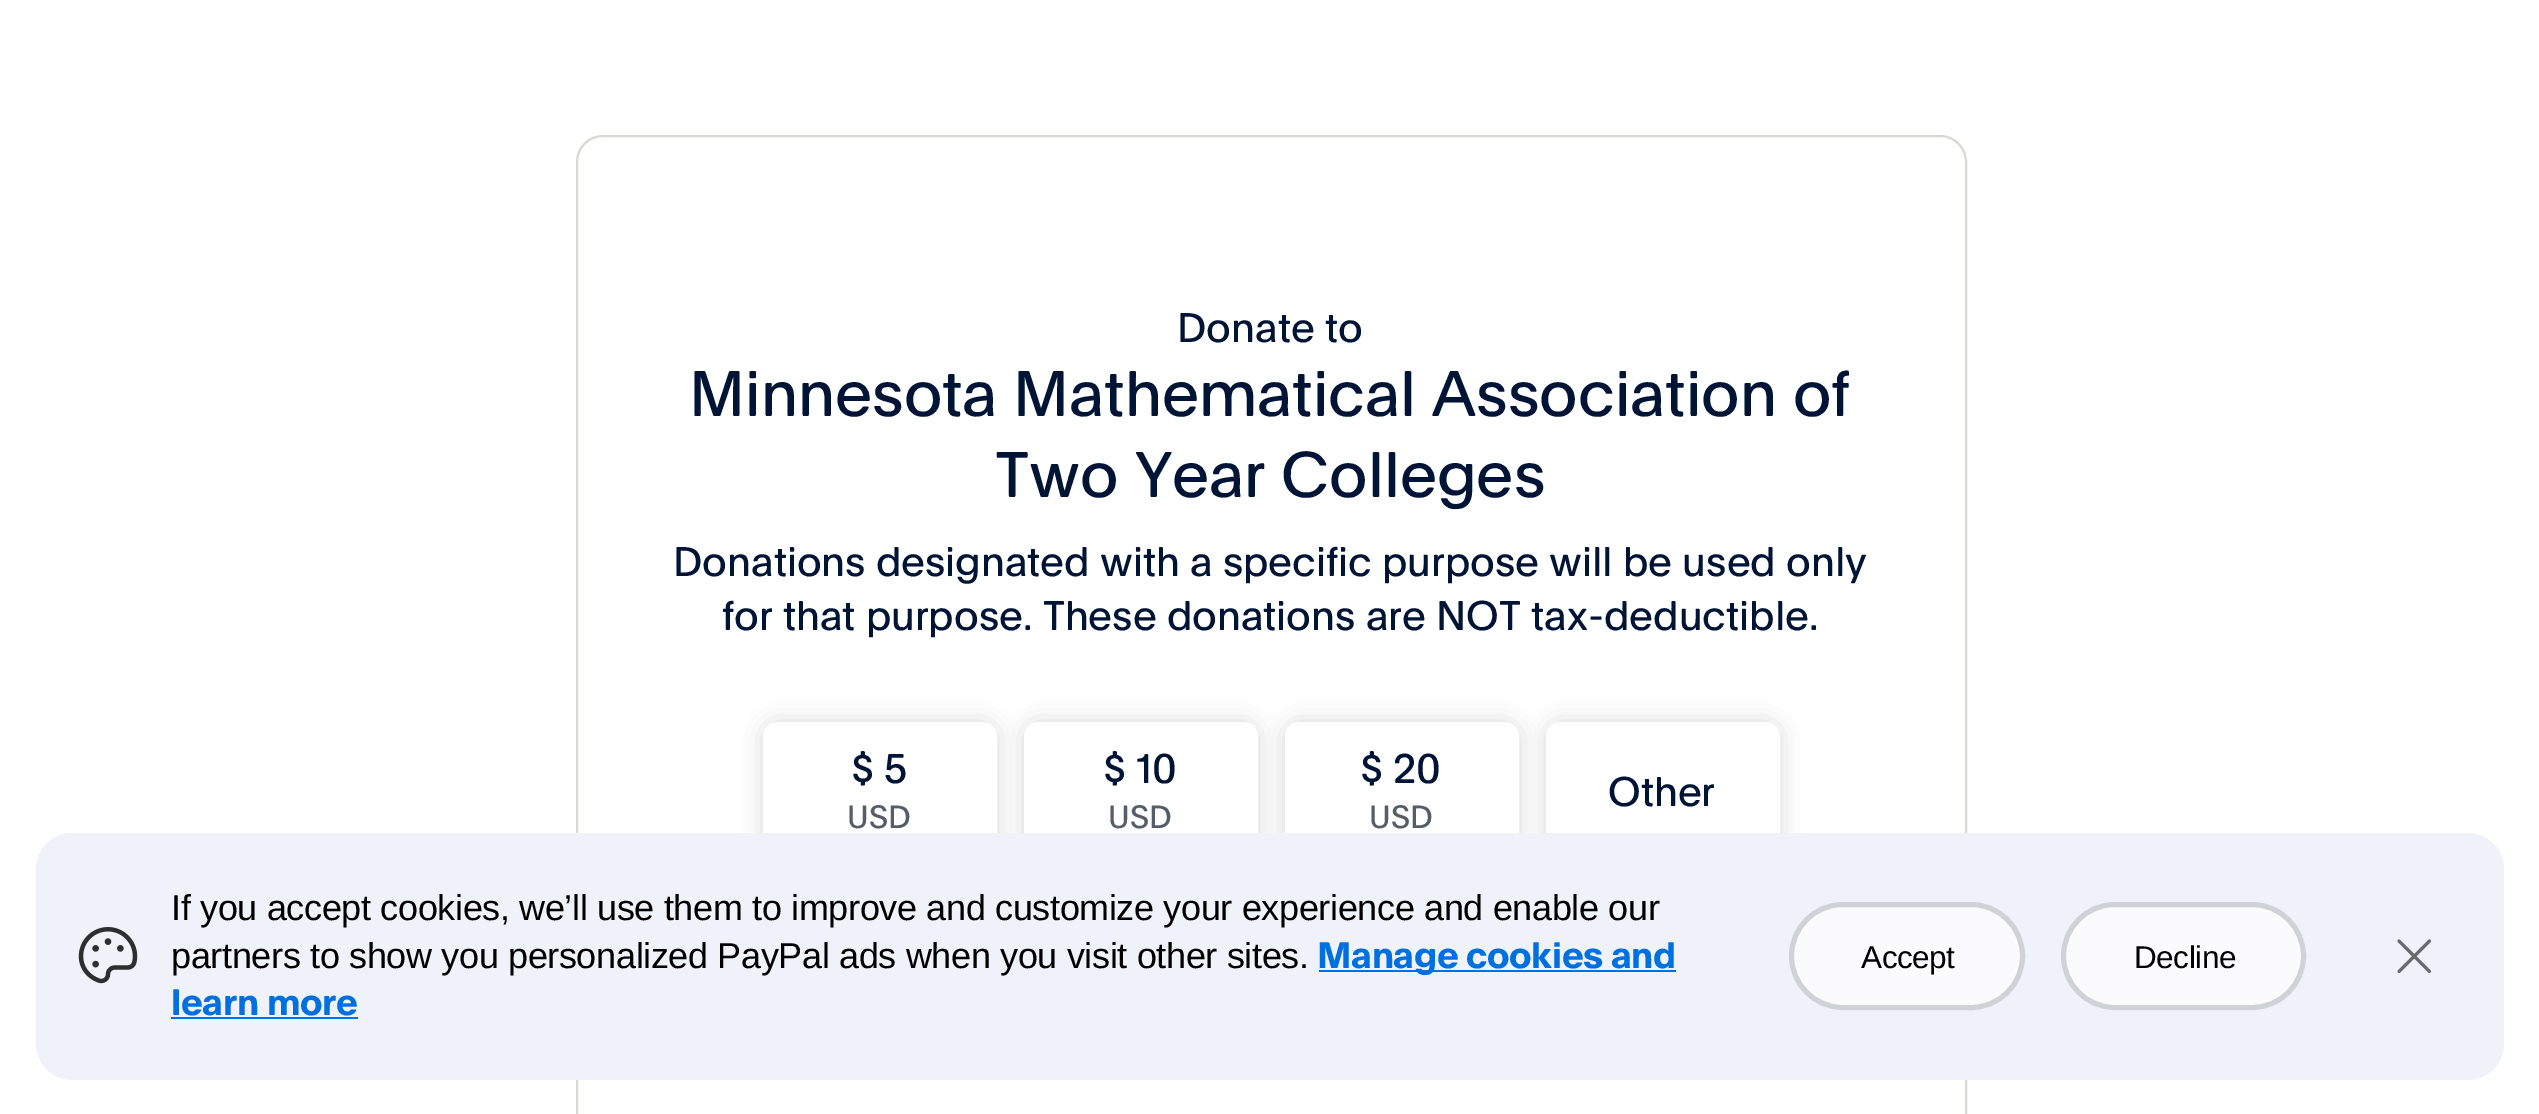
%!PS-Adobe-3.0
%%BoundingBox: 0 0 2539 1114
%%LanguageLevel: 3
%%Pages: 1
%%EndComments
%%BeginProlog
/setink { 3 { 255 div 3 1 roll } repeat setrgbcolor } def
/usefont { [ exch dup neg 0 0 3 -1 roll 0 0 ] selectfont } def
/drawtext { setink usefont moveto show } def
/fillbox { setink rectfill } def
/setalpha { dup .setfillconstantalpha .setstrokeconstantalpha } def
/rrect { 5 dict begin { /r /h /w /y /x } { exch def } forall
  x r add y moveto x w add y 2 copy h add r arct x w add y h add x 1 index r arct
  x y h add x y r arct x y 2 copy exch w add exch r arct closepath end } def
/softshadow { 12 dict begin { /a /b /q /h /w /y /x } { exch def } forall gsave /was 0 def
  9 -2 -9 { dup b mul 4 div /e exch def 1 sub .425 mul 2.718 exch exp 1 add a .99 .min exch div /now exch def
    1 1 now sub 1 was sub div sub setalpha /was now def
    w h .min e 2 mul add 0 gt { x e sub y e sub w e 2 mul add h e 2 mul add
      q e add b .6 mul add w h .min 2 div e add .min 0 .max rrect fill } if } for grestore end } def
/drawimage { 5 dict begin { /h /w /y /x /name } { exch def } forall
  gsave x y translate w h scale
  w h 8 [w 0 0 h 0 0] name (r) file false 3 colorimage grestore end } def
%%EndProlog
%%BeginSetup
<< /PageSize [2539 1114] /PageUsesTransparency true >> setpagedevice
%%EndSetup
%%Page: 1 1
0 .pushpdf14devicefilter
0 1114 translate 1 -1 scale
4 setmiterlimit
0 0 2539 1114 255 255 255 fillbox
219 216 208 setink
2 setlinewidth
577 136 1389 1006 26 rrect stroke
(Donate to) 1177 342 /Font-Regular 40.5 0 20 53 drawtext
(Minnesota Mathematical Association of) 689 416 /Font-Regular 63 0 20 53 drawtext
(Two Year Colleges) 995 497 /Font-Regular 63 0 20 53 drawtext
(Donations designated with a specific purpose will be used only) 673 576 /Font-Regular 40.5 0 20 53 drawtext
(for that purpose. These donations are NOT tax-deductible.) 722 630 /Font-Regular 40.5 0 20 53 drawtext
0 0 0 setink
763 722 234 135 14 11 0.15 softshadow
255 255 255 setink
764 723 232 133 13 rrect gsave fill grestore
stroke
($ 5) 851 783 /Font-Regular 40.5 0 20 53 drawtext
(USD) 847 828 /Font-Regular 31.5 84 93 104 drawtext
0 0 0 setink
1024 722 234 135 14 11 0.15 softshadow
255 255 255 setink
1025 723 232 133 13 rrect gsave fill grestore
stroke
($ 10) 1103 783 /Font-Regular 40.5 0 20 53 drawtext
(USD) 1108 828 /Font-Regular 31.5 84 93 104 drawtext
0 0 0 setink
1285 722 234 135 14 11 0.15 softshadow
255 255 255 setink
1286 723 232 133 13 rrect gsave fill grestore
stroke
($ 20) 1360 783 /Font-Regular 40.5 0 20 53 drawtext
(USD) 1369 828 /Font-Regular 31.5 84 93 104 drawtext
0 0 0 setink
1546 722 234 135 14 11 0.15 softshadow
255 255 255 setink
1547 723 232 133 13 rrect gsave fill grestore
stroke
(Other) 1608 806 /Font-Regular 40.5 0 20 53 drawtext
240 242 249 setink
36 833 2468 247 36 rrect fill
(assets/img1.rgb) 78 927 60 57 drawimage
/LiberationSans-Regular 36 usefont
0 0 0 setink
171 920 moveto -0.35 0 (If you accept cookies, we’ll use them to improve and customize your experience and enable our) ashow
171 968 moveto -0.35 0 (partners to show you personalized PayPal ads when you visit other sites.) ashow
1319 970 357 2 0 112 224 fillbox
/Font-Bold 36 usefont
1317 968 moveto -0.35 0 (Manage cookies and) ashow
171 1015 moveto -0.35 0 (learn more) ashow
171 1017 187 2 0 112 224 fillbox
251 251 253 setink
1791.5 904.5 231 103 51.5 rrect gsave fill grestore
207 211 216 setink
5 setlinewidth
stroke
/LiberationSans-Regular 31.5 usefont
0 0 0 setink
1861 968 moveto -0.5 0 (Accept) ashow
251 251 253 setink
2063.5 904.5 240 103 51.5 rrect gsave fill grestore
207 211 216 setink
stroke
0 0 0 setink
2134 968 moveto -0.5 0 (Decline) ashow
(assets/img2.rgb) 2397 939 35 34 drawimage
.poppdf14devicefilter showpage
%%EOF
